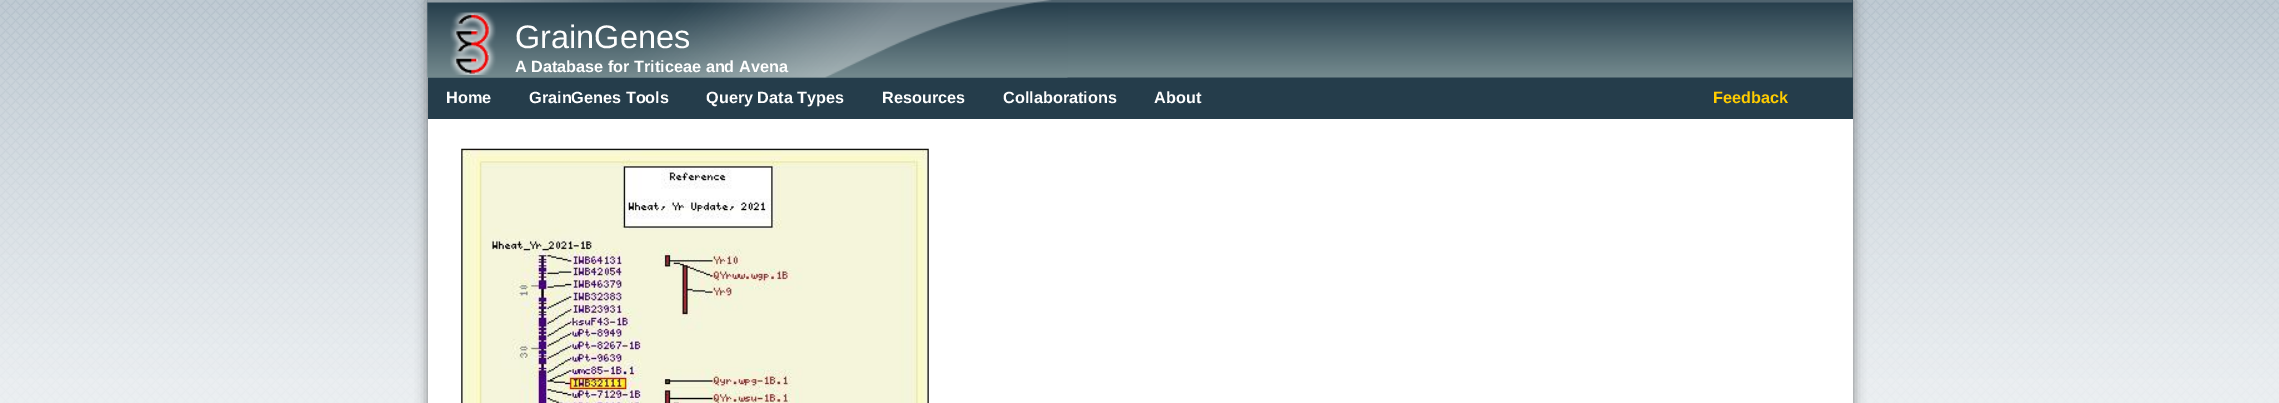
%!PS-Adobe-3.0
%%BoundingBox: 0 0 2279 403
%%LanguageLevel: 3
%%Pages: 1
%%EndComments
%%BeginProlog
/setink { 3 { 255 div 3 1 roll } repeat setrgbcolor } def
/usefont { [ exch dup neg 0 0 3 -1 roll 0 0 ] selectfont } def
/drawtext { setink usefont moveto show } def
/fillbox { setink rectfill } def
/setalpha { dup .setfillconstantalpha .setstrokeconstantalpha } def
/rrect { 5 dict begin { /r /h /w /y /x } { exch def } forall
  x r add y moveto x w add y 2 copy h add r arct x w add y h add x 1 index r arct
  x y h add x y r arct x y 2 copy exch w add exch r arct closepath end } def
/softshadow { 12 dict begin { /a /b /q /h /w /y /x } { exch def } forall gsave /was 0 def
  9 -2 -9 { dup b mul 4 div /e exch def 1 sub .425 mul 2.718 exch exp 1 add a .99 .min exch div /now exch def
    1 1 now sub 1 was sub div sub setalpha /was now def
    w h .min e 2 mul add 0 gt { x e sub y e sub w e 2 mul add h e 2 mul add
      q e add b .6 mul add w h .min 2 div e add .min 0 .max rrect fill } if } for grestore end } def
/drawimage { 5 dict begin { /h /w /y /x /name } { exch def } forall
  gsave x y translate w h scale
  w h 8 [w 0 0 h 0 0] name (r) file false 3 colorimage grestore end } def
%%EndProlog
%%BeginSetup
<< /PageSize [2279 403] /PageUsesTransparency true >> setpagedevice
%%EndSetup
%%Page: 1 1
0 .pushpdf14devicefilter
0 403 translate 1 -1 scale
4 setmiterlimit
0 0 2279 403 255 255 255 fillbox
(assets/img1.rgb) 0 0 2279 403 drawimage
(assets/img2.rgb) 0 0 2279 403 drawimage
76 76 76 setink
428 0 1425 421 0 6 0.7 softshadow
428 119 1425 284 255 255 255 fillbox
428 0 1425 119 37 61 75 fillbox
(assets/img3.rgb) 427 0 1426 78 drawimage
(assets/img4.rgb) 427 0 641 78 drawimage
(assets/img5.rgb) 450 12 46 63 drawimage
(GrainGenes) 515 48 /LiberationSans-Regular 32.5 254 254 254 drawtext
(A Database for Triticeae and Avena) 515 72 /LiberationSans-Bold 16.25 254 254 254 drawtext
(Home) 446 103 /LiberationSans-Bold 16.25 254 254 254 drawtext
(GrainGenes Tools) 529 103 /LiberationSans-Bold 16.25 254 254 254 drawtext
(Query Data Types) 706 103 /LiberationSans-Bold 16.25 254 254 254 drawtext
(Resources) 882 103 /LiberationSans-Bold 16.25 254 254 254 drawtext
(Collaborations) 1003 103 /LiberationSans-Bold 16.25 254 254 254 drawtext
(About) 1154 103 /LiberationSans-Bold 16.25 254 254 254 drawtext
(Feedback) 1713 103 /LiberationSans-Bold 16.25 255 204 0 drawtext
(assets/img6.rgb) 461 148 468 255 drawimage
.poppdf14devicefilter showpage
%%EOF
